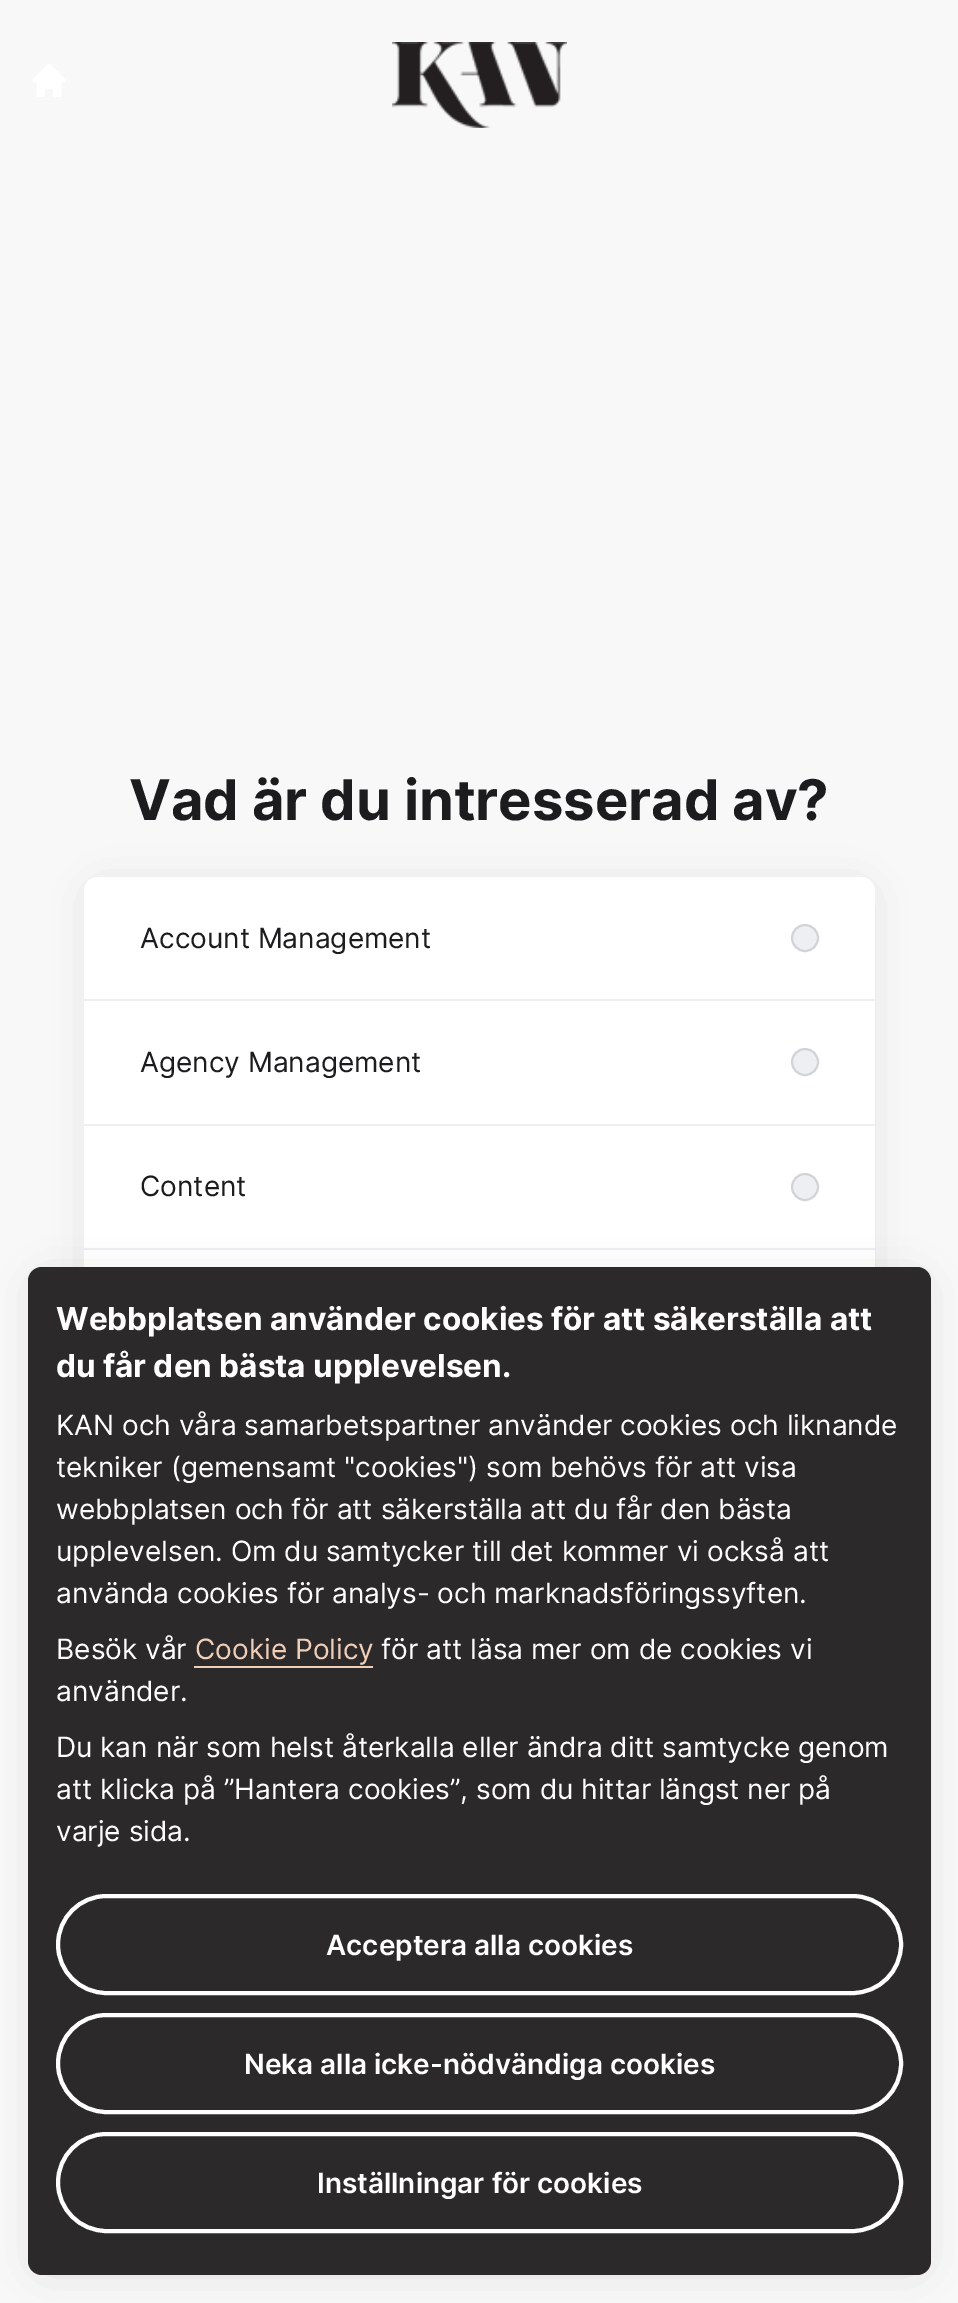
%!PS-Adobe-3.0
%%BoundingBox: 0 0 958 2303
%%LanguageLevel: 3
%%Pages: 1
%%EndComments
%%BeginProlog
/setink { 3 { 255 div 3 1 roll } repeat setrgbcolor } def
/usefont { [ exch dup neg 0 0 3 -1 roll 0 0 ] selectfont } def
/drawtext { setink usefont moveto show } def
/fillbox { setink rectfill } def
/setalpha { dup .setfillconstantalpha .setstrokeconstantalpha } def
/disc { newpath 0 360 arc closepath } def
/rrect { 5 dict begin { /r /h /w /y /x } { exch def } forall
  x r add y moveto x w add y 2 copy h add r arct x w add y h add x 1 index r arct
  x y h add x y r arct x y 2 copy exch w add exch r arct closepath end } def
/softshadow { 12 dict begin { /a /b /q /h /w /y /x } { exch def } forall gsave /was 0 def
  9 -2 -9 { dup b mul 4 div /e exch def 1 sub .425 mul 2.718 exch exp 1 add a .99 .min exch div /now exch def
    1 1 now sub 1 was sub div sub setalpha /was now def
    w h .min e 2 mul add 0 gt { x e sub y e sub w e 2 mul add h e 2 mul add
      q e add b .6 mul add w h .min 2 div e add .min 0 .max rrect fill } if } for grestore end } def
/drawimage { 5 dict begin { /h /w /y /x /name } { exch def } forall
  gsave x y translate w h scale
  w h 8 [w 0 0 h 0 0] name (r) file false 3 colorimage grestore end } def
%%EndProlog
%%BeginSetup
<< /PageSize [958 2303] /PageUsesTransparency true >> setpagedevice
%%EndSetup
%%Page: 1 1
0 .pushpdf14devicefilter
0 2303 translate 1 -1 scale
4 setmiterlimit
0 0 958 2303 248 248 249 fillbox
(assets/img1.rgb) 32 64 34 33 drawimage
(assets/img2.rgb) 392 42 175 86 drawimage
(Vad är du intresserad av?) 129 820 /Inter-Bold 56 28 28 30 drawtext
0 0 0 setink
102 898 756 525 0 23.5 0.18 softshadow
255 255 255 setink
84 877 791 560 14 rrect fill
84 999 791 2 238 239 242 fillbox
(Account Management) 140 948 /Inter-Regular 28 28 28 30 drawtext
238 239 242 setink
805 938 13 disc gsave fill grestore
210 211 214 setink
2 setlinewidth
stroke
84 1124 791 2 238 239 242 fillbox
(Agency Management) 140 1072 /Inter-Regular 28 28 28 30 drawtext
238 239 242 setink
805 1062 13 disc gsave fill grestore
210 211 214 setink
stroke
84 1248 791 2 238 239 242 fillbox
(Content) 140 1196 /Inter-Regular 28 28 28 30 drawtext
238 239 242 setink
805 1187 13 disc gsave fill grestore
210 211 214 setink
stroke
0 0 0 setink
46 1288 868 973 0 23.5 0.18 softshadow
44 41 43 setink
28 1267 903 1008 14 rrect fill
(Webbplatsen använder cookies för att säkerställa att) 56 1330 /Inter-Bold 31.5 255 255 255 drawtext
(du får den bästa upplevelsen.) 56 1377 /Inter-Bold 31.5 255 255 255 drawtext
(KAN och våra samarbetspartner använder cookies och liknande) 56 1435 /Inter-Regular 28 255 255 255 drawtext
(tekniker \(gemensamt "cookies"\) som behövs för att visa) 56 1477 /Inter-Regular 28 255 255 255 drawtext
(webbplatsen och för att säkerställa att du får den bästa) 56 1519 /Inter-Regular 28 255 255 255 drawtext
(upplevelsen. Om du samtycker till det kommer vi också att) 56 1561 /Inter-Regular 28 255 255 255 drawtext
(använda cookies för analys- och marknadsföringssyften.) 56 1603 /Inter-Regular 28 255 255 255 drawtext
(Besök vår) 56 1659 /Inter-Regular 28 255 255 255 drawtext
(Cookie Policy) 195 1659 /Inter-Regular 28 240 207 185 drawtext
194 1666 179 2 240 207 185 fillbox
(för att läsa mer om de cookies vi) 381 1659 /Inter-Regular 28 255 255 255 drawtext
(använder.) 56 1701 /Inter-Regular 28 255 255 255 drawtext
(Du kan när som helst återkalla eller ändra ditt samtycke genom) 56 1757 /Inter-Regular 28 255 255 255 drawtext
(att klicka på ”Hantera cookies”, som du hittar längst ner på) 56 1799 /Inter-Regular 28 255 255 255 drawtext
(varje sida.) 56 1841 /Inter-Regular 28 255 255 255 drawtext
4 setlinewidth
58 1896 843 97 48.5 rrect stroke
(Acceptera alla cookies) 326 1955 /Inter-SemiBold 28 255 255 255 drawtext
58 2015 843 97 48.5 rrect stroke
(Neka alla icke-nödvändiga cookies) 244 2074 /Inter-SemiBold 28 255 255 255 drawtext
58 2134 843 97 48.5 rrect stroke
(Inställningar för cookies) 317 2193 /Inter-SemiBold 28 255 255 255 drawtext
.poppdf14devicefilter showpage
%%EOF
